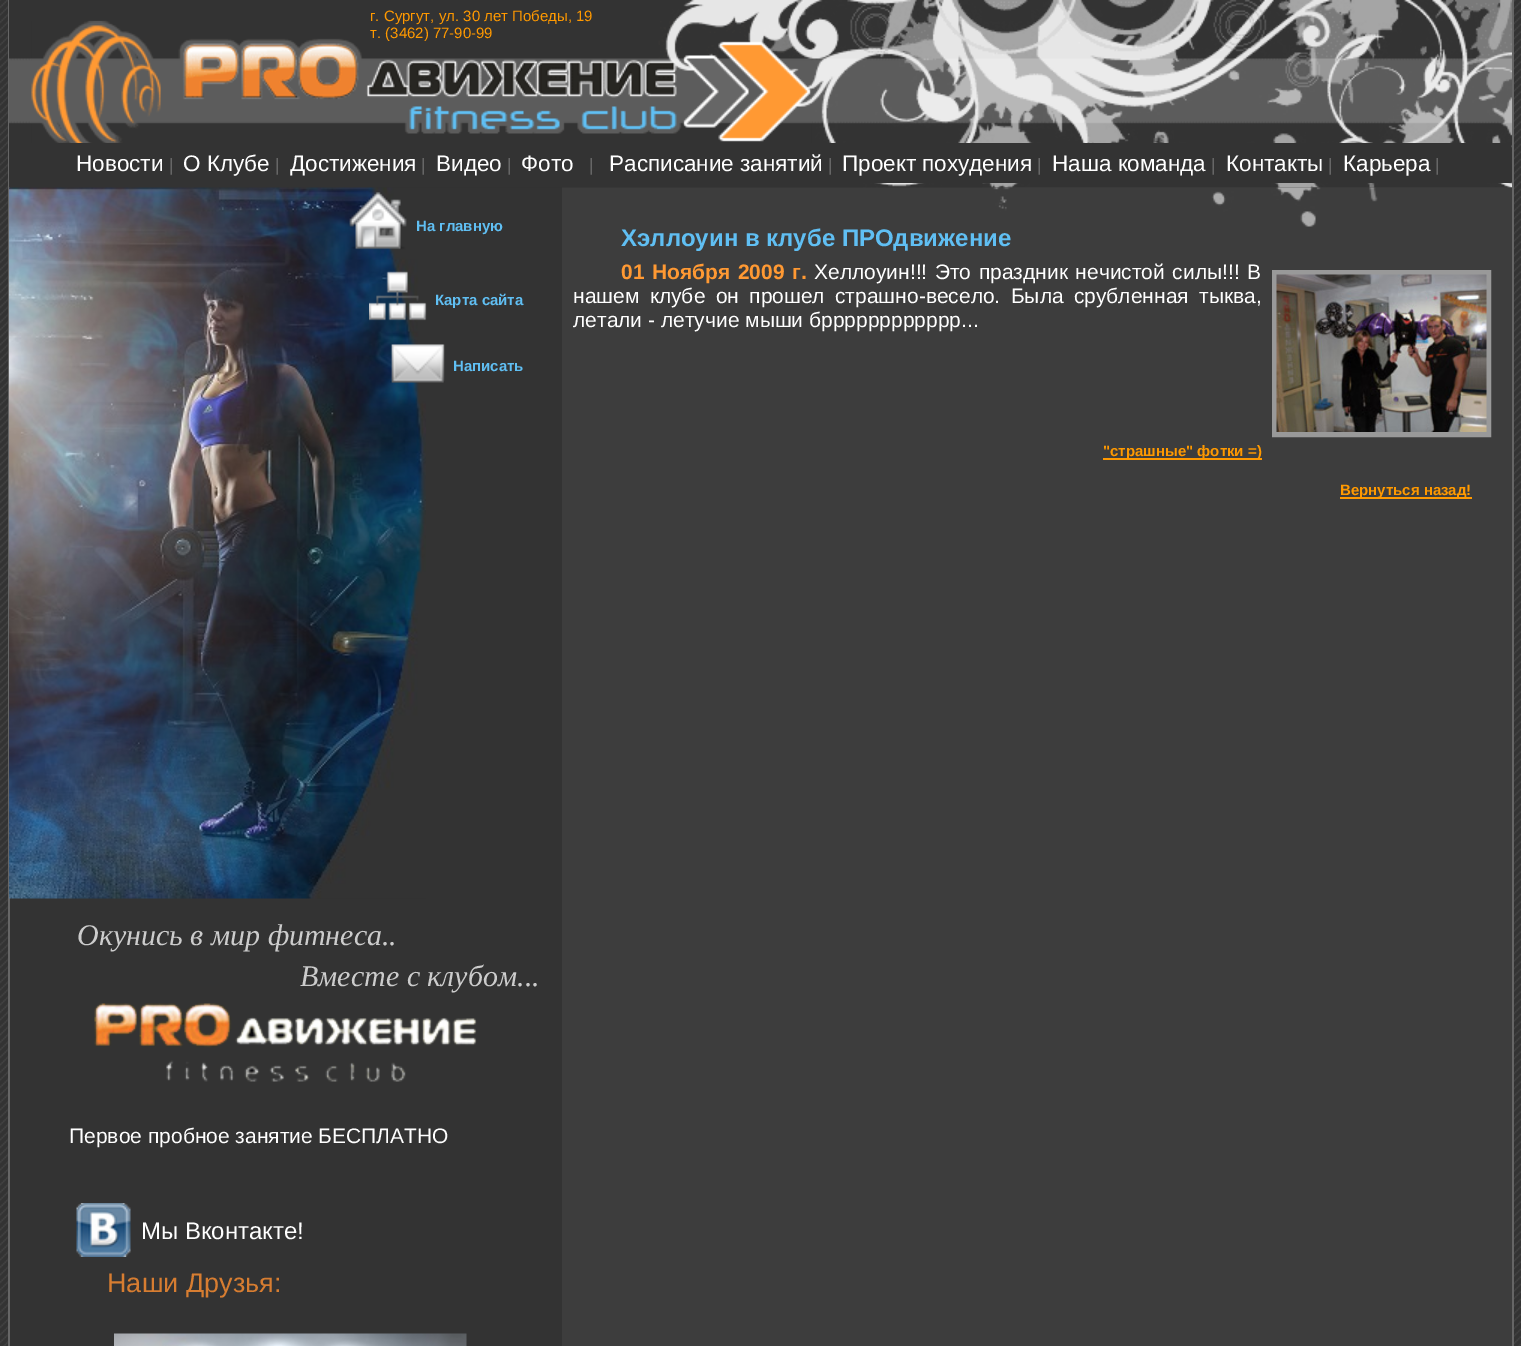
%!PS-Adobe-3.0
%%BoundingBox: 0 0 1521 1346
%%LanguageLevel: 3
%%Pages: 1
%%EndComments
%%BeginProlog
/setink { 3 { 255 div 3 1 roll } repeat setrgbcolor } def
/usefont { [ exch dup neg 0 0 3 -1 roll 0 0 ] selectfont } def
/drawtext { setink usefont moveto show } def
/fillbox { setink rectfill } def
/drawimage { 5 dict begin { /h /w /y /x /name } { exch def } forall
  gsave x y translate w h scale
  w h 8 [w 0 0 h 0 0] name (r) file false 3 colorimage grestore end } def
%%EndProlog
%%BeginSetup
<< /PageSize [1521 1346] >> setpagedevice
%%EndSetup
%%Page: 1 1
0 1346 translate 1 -1 scale
4 setmiterlimit
0 0 1521 1346 255 255 255 fillbox
(assets/img1.rgb) 0 0 1521 1346 drawimage
10 187 552 1159 51 51 51 fillbox
562 187 950 1159 61 61 61 fillbox
1512 0 2 1346 102 102 102 fillbox
8 0 2 1346 102 102 102 fillbox
(assets/img2.rgb) 9 0 1503 188 drawimage
(assets/img3.rgb) 31 21 781 122 drawimage
(г. Сургут, ул. 30 лет Победы, 19) 370 21 /LiberationSans-Regular 15 255 153 0 drawtext
(т. \(3462\) 77-90-99) 370 38 /LiberationSans-Regular 15 255 153 0 drawtext
58 143 1453 40 51 51 51 fillbox
(Новости) 76 171 /LiberationSans-Regular 22.5 255 255 255 drawtext
(|) 169 171 /LiberationSans-Regular 18 102 102 102 drawtext
(О Клубе) 183 171 /LiberationSans-Regular 22.5 255 255 255 drawtext
(|) 275 171 /LiberationSans-Regular 18 102 102 102 drawtext
(Достижения) 290 171 /LiberationSans-Regular 22.5 255 255 255 drawtext
(|) 421 171 /LiberationSans-Regular 18 102 102 102 drawtext
(Видео) 436 171 /LiberationSans-Regular 22.5 255 255 255 drawtext
(|) 507 171 /LiberationSans-Regular 18 102 102 102 drawtext
(Фото) 521 171 /LiberationSans-Regular 22.5 255 255 255 drawtext
(|) 589 171 /LiberationSans-Regular 18 102 102 102 drawtext
(Расписание занятий) 609 171 /LiberationSans-Regular 22.5 255 255 255 drawtext
(|) 828 171 /LiberationSans-Regular 18 102 102 102 drawtext
(Проект похудения) 842 171 /LiberationSans-Regular 22.5 255 255 255 drawtext
(|) 1037 171 /LiberationSans-Regular 18 102 102 102 drawtext
(Наша команда) 1052 171 /LiberationSans-Regular 22.5 255 255 255 drawtext
(|) 1211 171 /LiberationSans-Regular 18 102 102 102 drawtext
(Контакты) 1226 171 /LiberationSans-Regular 22.5 255 255 255 drawtext
(|) 1328 171 /LiberationSans-Regular 18 102 102 102 drawtext
(Карьера) 1343 171 /LiberationSans-Regular 22.5 255 255 255 drawtext
(|) 1435 171 /LiberationSans-Regular 18 102 102 102 drawtext
(assets/img4.rgb) 9 187 417 712 drawimage
(assets/img5.rgb) 349 192 58 58 drawimage
(На главную) 416 231 /LiberationSans-Bold 15 96 191 243 drawtext
(assets/img6.rgb) 369 271 58 50 drawimage
(Карта сайта) 435 305 /LiberationSans-Bold 15 96 191 243 drawtext
(assets/img7.rgb) 390 344 55 39 drawimage
(Написать) 453 371 /LiberationSans-Bold 15 96 191 243 drawtext
(assets/img8.rgb) 991 187 521 40 drawimage
(Хэллоуин в клубе ПРОдвижение) 621 246 /LiberationSans-Bold 24 96 191 243 drawtext
/LiberationSans-Bold 21 usefont
255 153 51 setink
621 279 moveto 1.75 0 32 (01 Ноября 2009 г.) widthshow
/LiberationSans-Regular 21 usefont
255 255 255 setink
814 279 moveto 1.75 0 32 (Хеллоуин!!! Это праздник нечистой силы!!! В) widthshow
153 153 153 setink
5 setlinewidth
1274.5 272.5 214 162 rectstroke
(assets/img9.rgb) 1276 274 211 158 drawimage
255 255 255 setink
573 303 moveto 4.5 0 32 (нашем клубе он прошел страшно-весело. Была срубленная тыква,) widthshow
(летали - летучие мыши брррррррррррр...) 573 327 /LiberationSans-Regular 21 255 255 255 drawtext
1103 458 159 2 255 153 0 fillbox
("страшные" фотки =\)) 1103 456 /LiberationSans-Bold 15 255 153 0 drawtext
1340 497 132 2 255 153 0 fillbox
(Вернуться назад!) 1340 495 /LiberationSans-Bold 15 255 153 0 drawtext
(Окунись в мир фитнеса..) 77 945 /LiberationSerif-Italic 30 204 204 204 drawtext
(Вместе с клубом...) 300 986 /LiberationSerif-Italic 30 204 204 204 drawtext
(assets/img10.rgb) 94 1003 383 79 drawimage
(Первое пробное занятие БЕСПЛАТНО) 69 1143 /LiberationSans-Regular 21 255 255 255 drawtext
(assets/img11.rgb) 76 1203 55 54 drawimage
(Мы Вконтакте!) 141 1239 /LiberationSans-Regular 24 255 255 255 drawtext
(Наши Друзья:) 107 1292 /LiberationSans-Regular 27 215 125 49 drawtext
(assets/img12.rgb) 114 1333 353 13 drawimage
showpage
%%EOF
